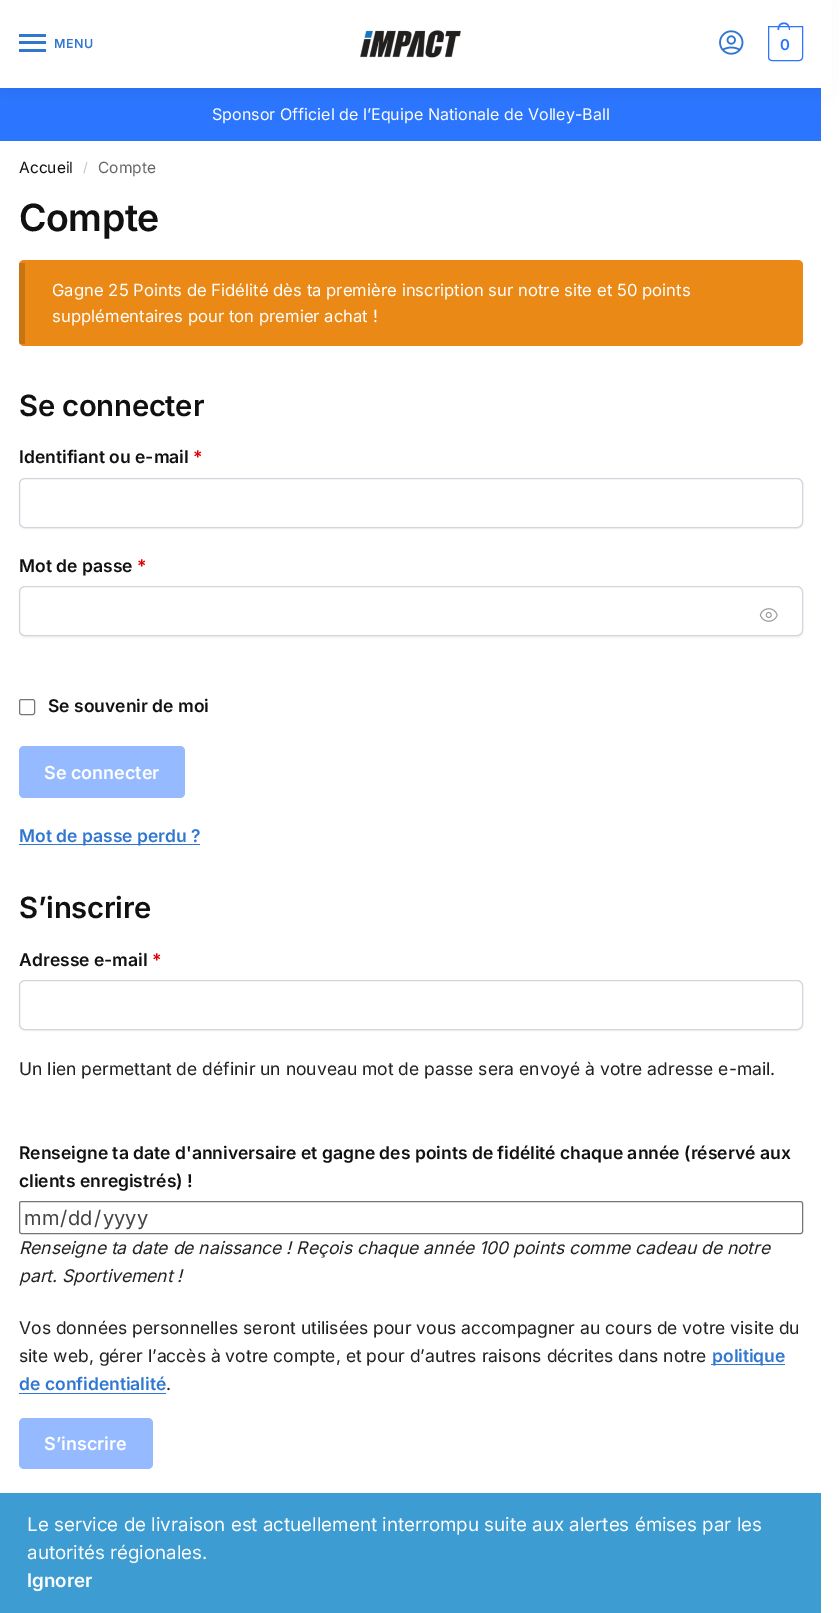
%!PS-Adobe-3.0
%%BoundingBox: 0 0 840 1613
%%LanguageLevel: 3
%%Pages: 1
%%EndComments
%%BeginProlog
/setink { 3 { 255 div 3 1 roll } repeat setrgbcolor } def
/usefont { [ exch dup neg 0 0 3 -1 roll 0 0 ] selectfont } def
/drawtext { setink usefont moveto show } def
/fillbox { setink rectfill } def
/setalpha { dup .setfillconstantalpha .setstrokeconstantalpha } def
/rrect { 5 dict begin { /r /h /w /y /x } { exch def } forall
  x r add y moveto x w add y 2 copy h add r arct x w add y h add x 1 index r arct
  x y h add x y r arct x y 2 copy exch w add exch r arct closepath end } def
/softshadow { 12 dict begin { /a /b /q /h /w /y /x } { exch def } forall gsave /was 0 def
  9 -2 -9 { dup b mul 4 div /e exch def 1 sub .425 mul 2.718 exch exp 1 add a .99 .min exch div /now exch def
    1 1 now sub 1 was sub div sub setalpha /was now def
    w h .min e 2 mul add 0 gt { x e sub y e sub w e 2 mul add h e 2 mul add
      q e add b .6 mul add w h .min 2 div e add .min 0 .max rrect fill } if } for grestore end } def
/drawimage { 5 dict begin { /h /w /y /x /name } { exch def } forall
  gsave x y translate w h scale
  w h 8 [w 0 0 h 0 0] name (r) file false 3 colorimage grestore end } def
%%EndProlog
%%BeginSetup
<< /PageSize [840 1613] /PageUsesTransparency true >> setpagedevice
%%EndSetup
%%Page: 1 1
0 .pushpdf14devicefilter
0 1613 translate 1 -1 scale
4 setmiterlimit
0 0 840 1613 255 255 255 fillbox
0 88 821 53 44 117 255 fillbox
0 0 0 setink
0 1 821 88 0 9.5 0.08 softshadow
0 0 821 88 255 255 255 fillbox
19 34 27 3 48 119 208 fillbox
19 41 27 3 48 119 208 fillbox
/Inter-SemiBold 12.5 usefont
54 48 moveto 0.5 0 (MENU) ashow
19 49 27 3 48 119 208 fillbox
(assets/img1.rgb) 360 30 101 28 drawimage
(assets/img2.rgb) 719 30 25 25 drawimage
44 117 255 setink
768.5 26.5 moveto 802.5 26.5 lineto 802.5 57 lineto 802.5 59 801 60.5 799 60.5 curveto 772 60.5 lineto 770 60.5 768.5 59 768.5 57 curveto closepath stroke
784 22.5 moveto 788 22.5 790 26 790 30 curveto 777.5 30 lineto 777.5 26 779.5 22.5 784 22.5 curveto closepath 784 24 moveto 787.5 24 789 27 789 30 curveto 779 30 lineto 779 27 780 24 784 24 curveto closepath eofill
/Inter-SemiBold 15 usefont
780 50 moveto -1 0 (0) ashow
821 0 11 95 255 255 255 fillbox
(Sponsor Officiel de l’Equipe Nationale de Volley-Ball) 212 120 /Inter-Regular 16.1 255 255 255 drawtext
(Accueil) 19 173 /Inter-Regular 15.5 17 17 17 drawtext
(/) 83 172 /Inter-Regular 13 194 194 194 drawtext
(Compte) 98 173 /Inter-Regular 15.5 102 102 102 drawtext
/Inter-SemiBold 37.5 usefont
17 17 17 setink
19 231 moveto -0.5 0 (Compte) ashow
234 137 22 setink
19 260 784 86 5 rrect fill
0.15 setalpha
19 263 6 81 0 0 0 fillbox
1 setalpha
(Gagne 25 Points de Fidélité dès ta première inscription sur notre site et 50 points) 52 296 /Inter-Regular 16.7 255 255 255 drawtext
(supplémentaires pour ton premier achat !) 52 322 /Inter-Regular 16.7 255 255 255 drawtext
/Inter-SemiBold 29.25 usefont
17 17 17 setink
19 416 moveto -0.25 0 (Se connecter) ashow
(Identifiant ou e-mail) 19 463 /Inter-SemiBold 17.5 17 17 17 drawtext
(*) 193 463 /Inter-SemiBold 17.5 223 2 2 drawtext
0 0 0 setink
19 479 784 50 6 1 0.05 softshadow
255 255 255 setink
19.5 478.5 783 49 5.5 rrect gsave fill grestore
210 214 220 setink
stroke
(Mot de passe) 19 572 /Inter-SemiBold 17.5 17 17 17 drawtext
(*) 137 572 /Inter-SemiBold 17.5 223 2 2 drawtext
0 0 0 setink
19 588 784 50 6 1 0.05 softshadow
255 255 255 setink
19.5 586.5 783 49 5.5 rrect gsave fill grestore
210 214 220 setink
stroke
(assets/img3.rgb) 759 608 19 14 drawimage
118 118 118 setink
19.5 699.5 15 15 2 rrect stroke
(Se souvenir de moi) 48 712 /Inter-SemiBold 17.5 17 17 17 drawtext
150 186 255 setink
19 746 166 52 5 rrect fill
(Se connecter) 44 779 /Inter-SemiBold 18 255 255 255 drawtext
19 844 181 1 48 119 208 fillbox
(Mot de passe perdu ?) 19 842 /Inter-SemiBold 17.5 48 119 208 drawtext
/Inter-SemiBold 29.25 usefont
17 17 17 setink
19 918 moveto -0.25 0 (S’inscrire) ashow
(Adresse e-mail) 19 966 /Inter-SemiBold 17.5 17 17 17 drawtext
(*) 152 966 /Inter-SemiBold 17.5 223 2 2 drawtext
0 0 0 setink
19 981 784 50 6 1 0.05 softshadow
255 255 255 setink
19.5 980.5 783 49 5.5 rrect gsave fill grestore
210 214 220 setink
stroke
(Un lien permettant de définir un nouveau mot de passe sera envoyé à votre adresse e-mail.) 19 1075 /Inter-Regular 17.5 34 34 34 drawtext
(Renseigne ta date d'anniversaire et gagne des points de fidélité chaque année \(réservé aux) 19 1159 /Inter-SemiBold 17.5 17 17 17 drawtext
(clients enregistrés\) !) 19 1187 /Inter-SemiBold 17.5 17 17 17 drawtext
118 118 118 setink
19.5 1201.5 783 32 2 rrect stroke
(mm) 24 1225 /Inter-Regular 20 68 68 68 drawtext
(/) 60 1225 /Inter-Regular 20 68 68 68 drawtext
(dd) 68 1225 /Inter-Regular 20 68 68 68 drawtext
(/) 94 1225 /Inter-Regular 20 68 68 68 drawtext
(yyyy) 103 1225 /Inter-Regular 20 68 68 68 drawtext
(Renseigne ta date de naissance ! Reçois chaque année 100 points comme cadeau de notre) 19 1254 /Inter-Italic 17.5 34 34 34 drawtext
(part. Sportivement !) 19 1282 /Inter-Italic 17.5 34 34 34 drawtext
(Vos données personnelles seront utilisées pour vous accompagner au cours de votre visite du) 19 1334 /Inter-Regular 17.5 34 34 34 drawtext
(site web, gérer l’accès à votre compte, et pour d’autres raisons décrites dans notre) 19 1362 /Inter-Regular 17.5 34 34 34 drawtext
711 1364 74 1 48 119 208 fillbox
(politique) 712 1362 /Inter-SemiBold 17.5 48 119 208 drawtext
(de confidentialité) 19 1390 /Inter-SemiBold 17.5 48 119 208 drawtext
19 1393 147 1 48 119 208 fillbox
(.) 166 1390 /Inter-Regular 17.5 34 34 34 drawtext
150 186 255 setink
19 1418 134 51 5 rrect fill
(S’inscrire) 44 1450 /Inter-SemiBold 18 255 255 255 drawtext
0 1493 821 120 61 156 210 fillbox
(Le service de livraison est actuellement interrompu suite aux alertes émises par les) 27 1531 /Inter-Regular 18.75 255 255 255 drawtext
(autorités régionales.) 27 1559 /Inter-Regular 18.75 255 255 255 drawtext
(Ignorer) 27 1587 /Inter-SemiBold 18.75 255 255 255 drawtext
.poppdf14devicefilter showpage
%%EOF
